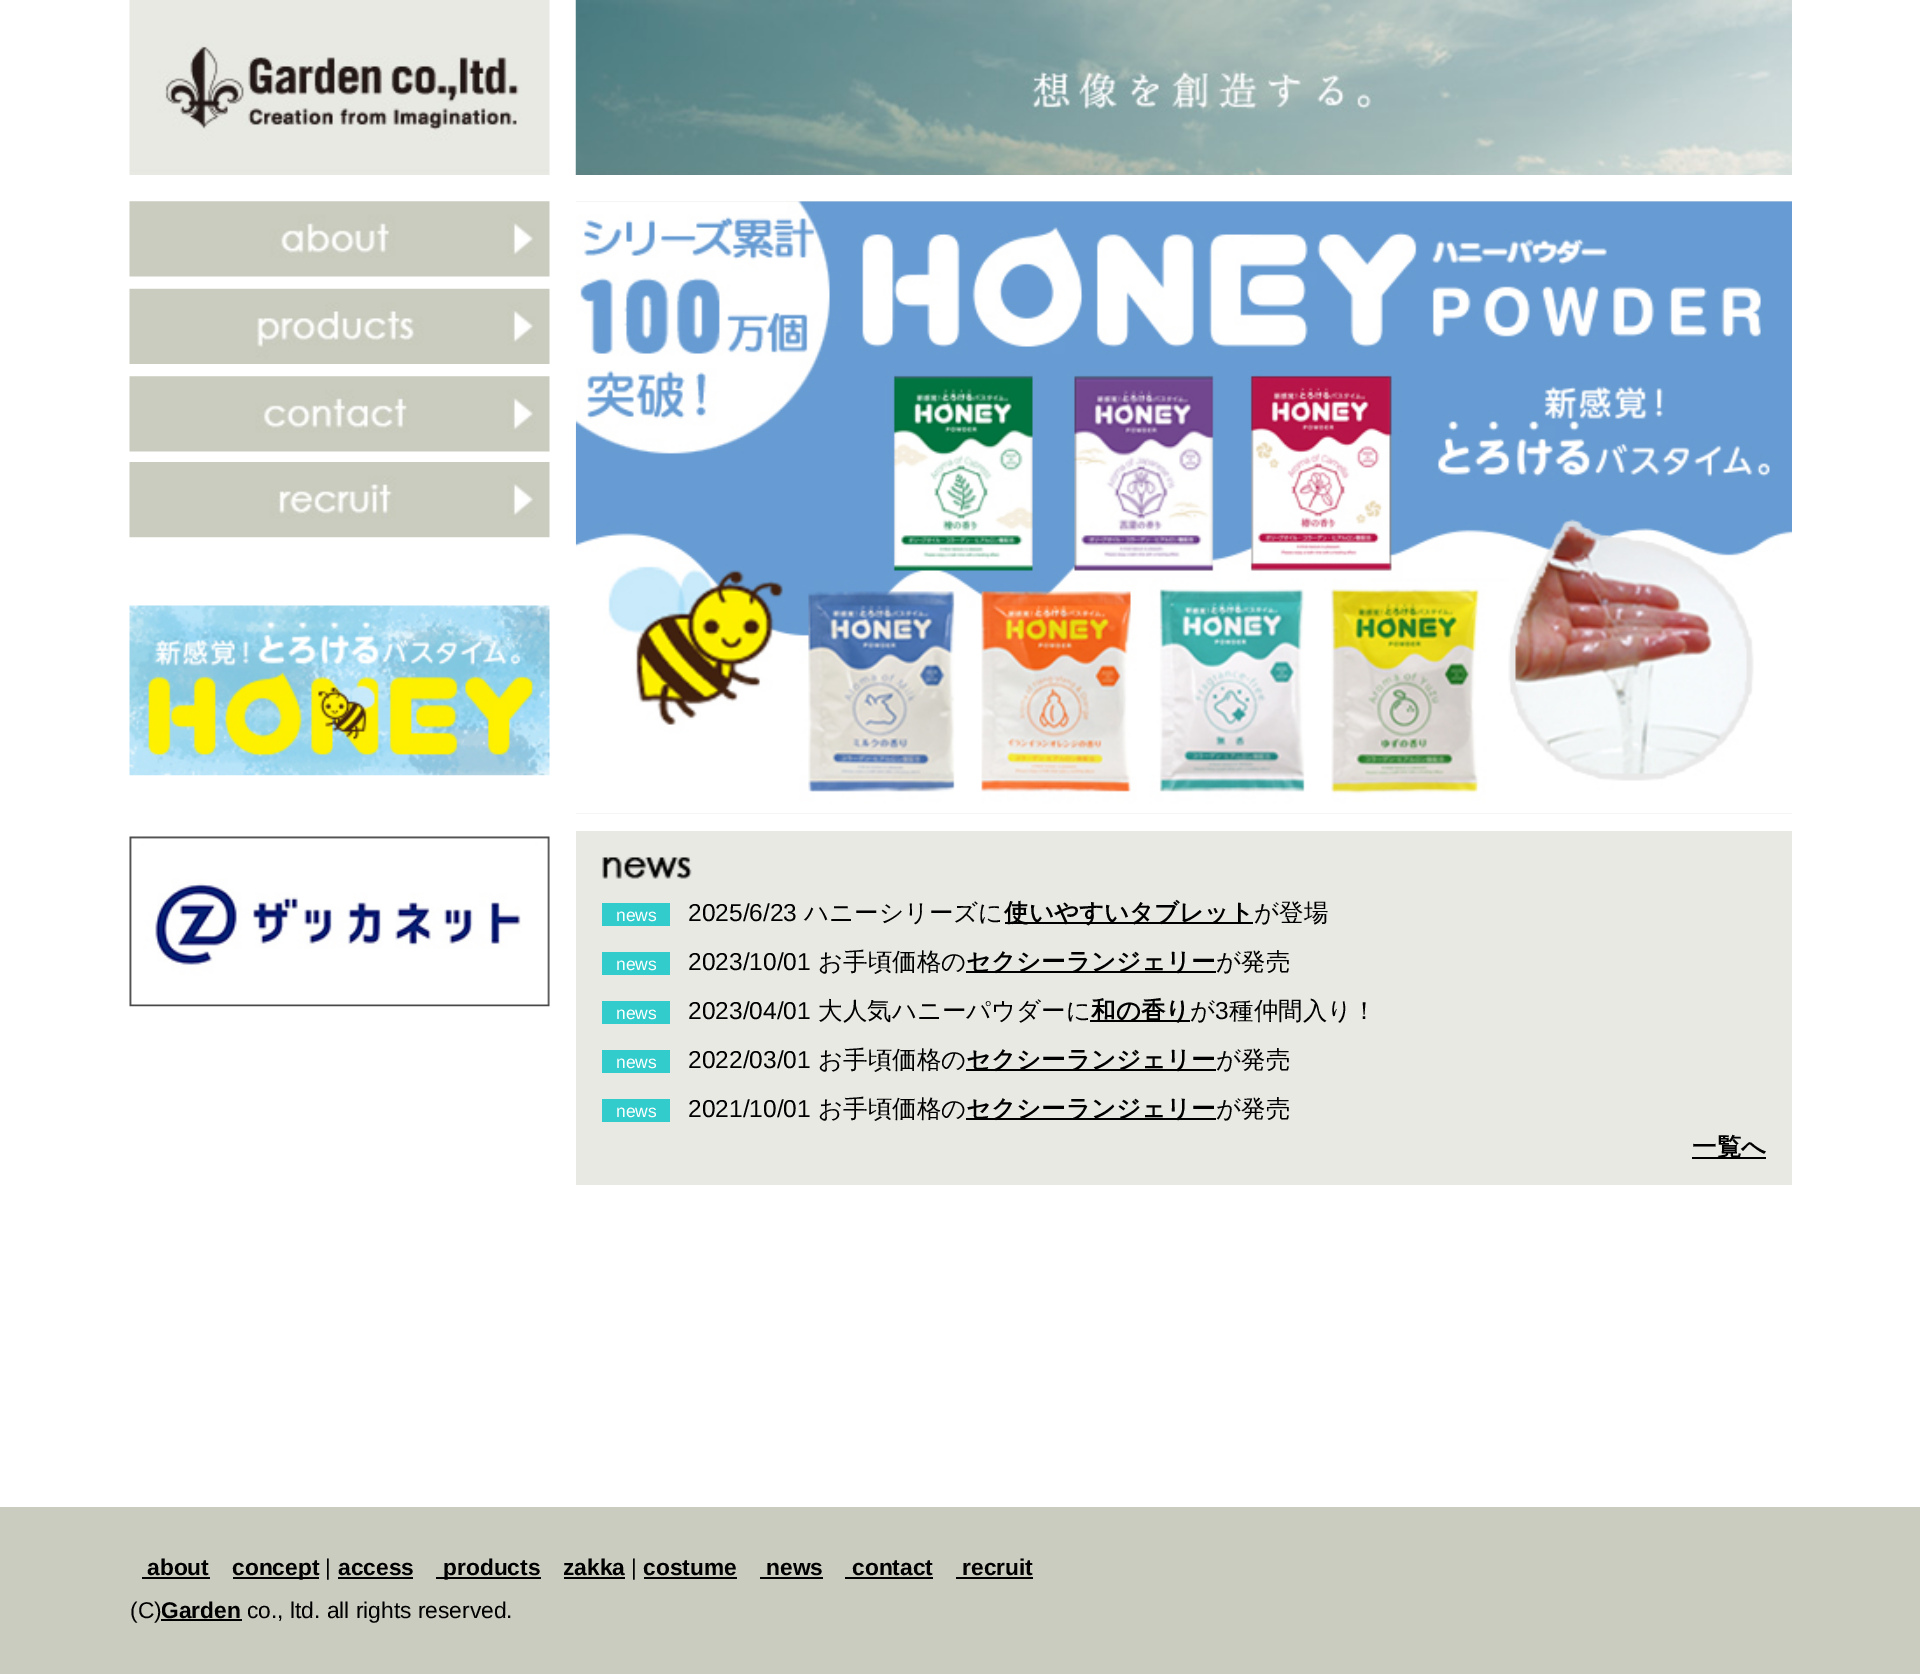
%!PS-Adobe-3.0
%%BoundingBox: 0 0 1920 1674
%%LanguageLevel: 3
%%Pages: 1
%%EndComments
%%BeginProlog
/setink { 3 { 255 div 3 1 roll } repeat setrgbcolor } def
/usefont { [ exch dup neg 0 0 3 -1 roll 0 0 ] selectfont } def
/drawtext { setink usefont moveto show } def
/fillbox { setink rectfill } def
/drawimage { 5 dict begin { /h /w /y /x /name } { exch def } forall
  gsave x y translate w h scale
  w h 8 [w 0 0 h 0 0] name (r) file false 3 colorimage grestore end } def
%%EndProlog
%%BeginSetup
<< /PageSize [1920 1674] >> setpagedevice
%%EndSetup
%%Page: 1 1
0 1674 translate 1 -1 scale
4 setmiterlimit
0 0 1920 1674 255 255 255 fillbox
(assets/img1.rgb) 129 0 421 175 drawimage
(assets/img2.rgb) 575 0 1217 175 drawimage
(assets/img3.rgb) 129 201 421 76 drawimage
(assets/img4.rgb) 129 288 421 76 drawimage
(assets/img5.rgb) 129 376 421 76 drawimage
(assets/img6.rgb) 129 462 421 76 drawimage
(assets/img7.rgb) 129 605 421 171 drawimage
(assets/img8.rgb) 129 836 421 171 drawimage
576 201 1216 613 232 233 227 fillbox
(assets/img9.rgb) 575 201 1217 613 drawimage
576 831 1216 354 232 233 227 fillbox
(assets/img10.rgb) 602 857 90 22 drawimage
602 903 68 23 51 204 204 fillbox
(news) 616 921 /LiberationSans-Regular 17.5 255 255 255 drawtext
(2025/6/23) 688 921 /LiberationSans-Regular 24.5 0 0 0 drawtext
(ハニーシリーズに) 804 921 /WenQuanYiZenHei-Medium 24.5 0 0 0 drawtext
1005 922 248 2 0 0 0 fillbox
(使いやすいタブレット) 1004 921 /WenQuanYiZenHei-Bold 24.5 0 0 0 drawtext
(が登場) 1254 921 /WenQuanYiZenHei-Medium 24.5 0 0 0 drawtext
602 952 68 23 51 204 204 fillbox
(news) 616 970 /LiberationSans-Regular 17.5 255 255 255 drawtext
(2023/10/01) 688 970 /LiberationSans-Regular 24.5 0 0 0 drawtext
(お手頃価格の) 818 970 /WenQuanYiZenHei-Medium 24.5 0 0 0 drawtext
966 971 250 2 0 0 0 fillbox
(セクシーランジェリー) 966 970 /WenQuanYiZenHei-Bold 24.5 0 0 0 drawtext
(が発売) 1216 970 /WenQuanYiZenHei-Medium 24.5 0 0 0 drawtext
602 1001 68 23 51 204 204 fillbox
(news) 616 1019 /LiberationSans-Regular 17.5 255 255 255 drawtext
(2023/04/01) 688 1019 /LiberationSans-Regular 24.5 0 0 0 drawtext
(大人気ハニーパウダーに) 818 1019 /WenQuanYiZenHei-Medium 24.5 0 0 0 drawtext
1090 1020 100 2 0 0 0 fillbox
(和の香り) 1091 1019 /WenQuanYiZenHei-Bold 24.5 0 0 0 drawtext
(が) 1190 1019 /WenQuanYiZenHei-Medium 24.5 0 0 0 drawtext
(3) 1215 1019 /LiberationSans-Regular 24.5 0 0 0 drawtext
(種仲間入り！) 1229 1019 /WenQuanYiZenHei-Medium 24.5 0 0 0 drawtext
602 1050 68 23 51 204 204 fillbox
(news) 616 1068 /LiberationSans-Regular 17.5 255 255 255 drawtext
(2022/03/01) 688 1068 /LiberationSans-Regular 24.5 0 0 0 drawtext
(お手頃価格の) 818 1068 /WenQuanYiZenHei-Medium 24.5 0 0 0 drawtext
966 1069 250 2 0 0 0 fillbox
(セクシーランジェリー) 966 1068 /WenQuanYiZenHei-Bold 24.5 0 0 0 drawtext
(が発売) 1216 1068 /WenQuanYiZenHei-Medium 24.5 0 0 0 drawtext
602 1099 68 23 51 204 204 fillbox
(news) 616 1117 /LiberationSans-Regular 17.5 255 255 255 drawtext
(2021/10/01) 688 1117 /LiberationSans-Regular 24.5 0 0 0 drawtext
(お手頃価格の) 818 1117 /WenQuanYiZenHei-Medium 24.5 0 0 0 drawtext
966 1118 250 2 0 0 0 fillbox
(セクシーランジェリー) 966 1117 /WenQuanYiZenHei-Bold 24.5 0 0 0 drawtext
(が発売) 1216 1117 /WenQuanYiZenHei-Medium 24.5 0 0 0 drawtext
1692 1157 74 2 0 0 0 fillbox
(一覧へ) 1692 1155 /WenQuanYiZenHei-Bold 24.5 0 0 0 drawtext
0 1507 1920 167 202 204 191 fillbox
(about) 147 1575 /LiberationSans-Bold 22.75 0 0 0 drawtext
142 1577 68 2 0 0 0 fillbox
233 1577 86 2 0 0 0 fillbox
(concept) 232 1575 /LiberationSans-Bold 22.75 0 0 0 drawtext
(|) 325 1575 /LiberationSans-Regular 22.75 0 0 0 drawtext
(access) 338 1575 /LiberationSans-Bold 22.75 0 0 0 drawtext
338 1577 75 2 0 0 0 fillbox
436 1577 105 2 0 0 0 fillbox
(products) 443 1575 /LiberationSans-Bold 22.75 0 0 0 drawtext
(zakka) 563 1575 /LiberationSans-Bold 22.75 0 0 0 drawtext
564 1577 61 2 0 0 0 fillbox
(|) 631 1575 /LiberationSans-Regular 22.75 0 0 0 drawtext
(costume) 643 1575 /LiberationSans-Bold 22.75 0 0 0 drawtext
644 1577 93 2 0 0 0 fillbox
(news) 766 1575 /LiberationSans-Bold 22.75 0 0 0 drawtext
760 1577 63 2 0 0 0 fillbox
(contact) 852 1575 /LiberationSans-Bold 22.75 0 0 0 drawtext
845 1577 88 2 0 0 0 fillbox
(recruit) 962 1575 /LiberationSans-Bold 22.75 0 0 0 drawtext
956 1577 77 2 0 0 0 fillbox
(\(C\)) 130 1618 /LiberationSans-Regular 22.75 0 0 0 drawtext
161 1619 81 2 0 0 0 fillbox
(Garden) 161 1618 /LiberationSans-Bold 22.75 0 0 0 drawtext
(co., ltd. all rights reserved.) 247 1618 /LiberationSans-Regular 22.75 0 0 0 drawtext
showpage
%%EOF
